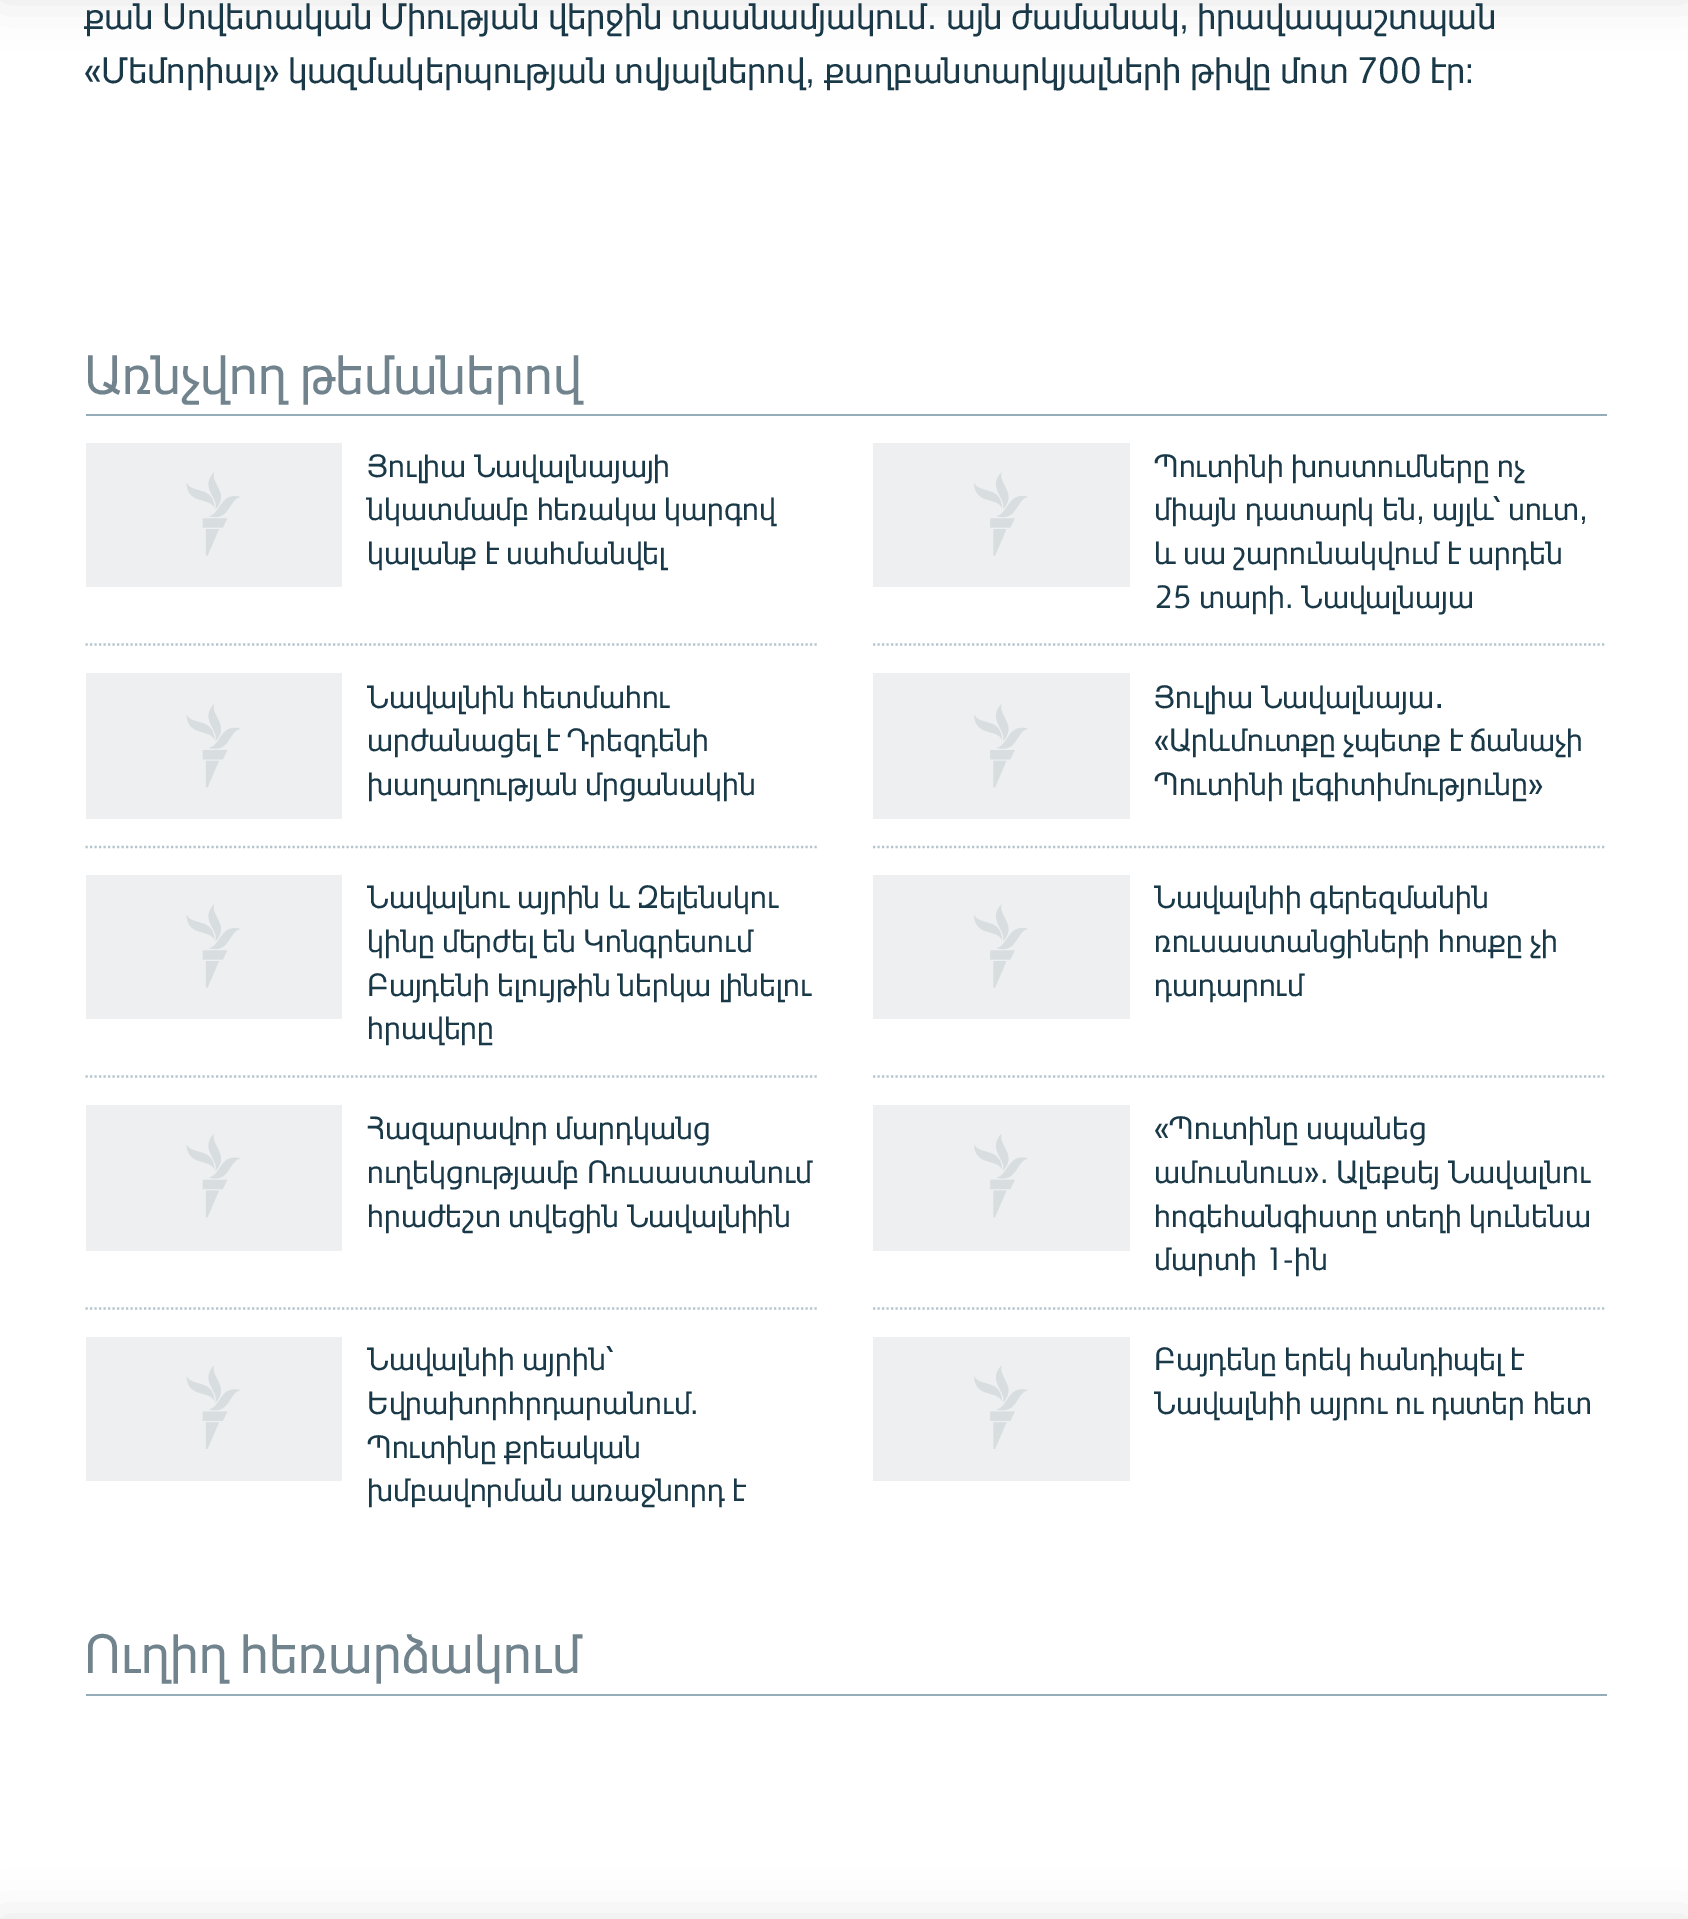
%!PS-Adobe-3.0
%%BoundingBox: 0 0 1688 1919
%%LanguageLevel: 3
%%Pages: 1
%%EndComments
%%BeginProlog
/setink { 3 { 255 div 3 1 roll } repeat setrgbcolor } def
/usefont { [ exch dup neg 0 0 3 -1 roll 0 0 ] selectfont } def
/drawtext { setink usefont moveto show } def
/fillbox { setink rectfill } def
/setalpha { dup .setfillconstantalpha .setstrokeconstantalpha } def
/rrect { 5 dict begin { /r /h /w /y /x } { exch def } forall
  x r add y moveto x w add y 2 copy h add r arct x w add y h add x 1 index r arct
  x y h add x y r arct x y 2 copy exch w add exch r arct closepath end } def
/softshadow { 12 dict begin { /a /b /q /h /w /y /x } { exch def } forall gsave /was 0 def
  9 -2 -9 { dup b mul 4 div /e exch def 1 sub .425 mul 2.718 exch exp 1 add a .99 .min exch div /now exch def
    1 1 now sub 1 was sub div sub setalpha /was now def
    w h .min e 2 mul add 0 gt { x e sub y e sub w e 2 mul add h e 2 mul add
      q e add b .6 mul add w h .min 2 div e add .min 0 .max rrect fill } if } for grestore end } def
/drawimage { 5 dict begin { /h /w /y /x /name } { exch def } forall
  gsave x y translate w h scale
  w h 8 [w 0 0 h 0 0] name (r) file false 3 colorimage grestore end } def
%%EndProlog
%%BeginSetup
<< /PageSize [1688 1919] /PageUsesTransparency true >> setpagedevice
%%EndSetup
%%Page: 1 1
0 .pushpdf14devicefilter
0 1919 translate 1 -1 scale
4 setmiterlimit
0 0 1688 1919 255 255 255 fillbox
0 0 0 setink
0 -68 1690 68 0 22.5 0.1 softshadow
0 1919 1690 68 0 22.5 0.1 softshadow
(քան Սովետական Միության վերջին տասնամյակում) 84 29 /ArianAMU-Regular 36 26 57 72 drawtext
(.) 927 29 /LiberationSans-Regular 36 26 57 72 drawtext
(այն ժամանակ) 946 29 /ArianAMU-Regular 36 26 57 72 drawtext
(,) 1179 29 /LiberationSans-Regular 36 26 57 72 drawtext
(իրավապաշտպան) 1197 29 /ArianAMU-Regular 36 26 57 72 drawtext
(«Մեմորիալ» կազմակերպության տվյալներով) 84 83 /ArianAMU-Regular 36 26 57 72 drawtext
(,) 805 83 /LiberationSans-Regular 36 26 57 72 drawtext
(քաղբանտարկյալների թիվը մոտ 700 էր։) 824 83 /ArianAMU-Regular 36 26 57 72 drawtext
86 414 1521 2 149 173 185 fillbox
(Առնչվող թեմաներով) 84 394 /ArianAMU-Regular 54 113 131 141 drawtext
86 443 256 144 237 239 240 fillbox
(assets/img1.rgb) 186 472 54 84 drawimage
(Յուլիա Նավալնայայի) 367 477 /ArianAMU-Regular 31.5 26 57 72 drawtext
(նկատմամբ հեռակա կարգով) 367 520 /ArianAMU-Regular 31.5 26 57 72 drawtext
(կալանք է սահմանվել) 367 564 /ArianAMU-Regular 31.5 26 57 72 drawtext
873 443 257 144 237 239 240 fillbox
(assets/img2.rgb) 974 472 54 84 drawimage
(Պուտինի խոստումները ոչ) 1154 477 /ArianAMU-Regular 31.5 26 57 72 drawtext
(միայն դատարկ են) 1154 520 /ArianAMU-Regular 31.5 26 57 72 drawtext
(,) 1416 520 /LiberationSans-Regular 31.5 26 57 72 drawtext
(այլև՝ սուտ) 1432 520 /ArianAMU-Regular 31.5 26 57 72 drawtext
(,) 1579 520 /LiberationSans-Regular 31.5 26 57 72 drawtext
(և սա շարունակվում է արդեն) 1154 564 /ArianAMU-Regular 31.5 26 57 72 drawtext
(25 տարի) 1154 608 /ArianAMU-Regular 31.5 26 57 72 drawtext
(.) 1285 608 /LiberationSans-Regular 31.5 26 57 72 drawtext
(Նավալնայա) 1301 608 /ArianAMU-Regular 31.5 26 57 72 drawtext
180 197 205 setink
2.2 setlinewidth
[2.25 2.25] 0 setdash
85.5 644.5 moveto 819 644.5 lineto stroke
86 673 256 146 237 239 240 fillbox
(assets/img3.rgb) 186 704 55 84 drawimage
(Նավալնին հետմահու) 367 708 /ArianAMU-Regular 31.5 26 57 72 drawtext
(արժանացել է Դրեզդենի) 367 751 /ArianAMU-Regular 31.5 26 57 72 drawtext
(խաղաղության մրցանակին) 367 795 /ArianAMU-Regular 31.5 26 57 72 drawtext
180 197 205 setink
873 644.5 moveto 1606.5 644.5 lineto stroke
873 673 257 146 237 239 240 fillbox
(assets/img4.rgb) 974 704 54 84 drawimage
(Յուլիա Նավալնայա) 1154 708 /ArianAMU-Regular 31.5 26 57 72 drawtext
(․) 1434 708 /DejaVuSans-Regular 31.5 26 57 72 drawtext
(«Արևմուտքը չպետք է ճանաչի) 1154 751 /ArianAMU-Regular 31.5 26 57 72 drawtext
(Պուտինի լեգիտիմությունը») 1154 795 /ArianAMU-Regular 31.5 26 57 72 drawtext
180 197 205 setink
85.5 847 moveto 819 847 lineto stroke
86 875 256 144 237 239 240 fillbox
(assets/img1.rgb) 186 904 54 84 drawimage
(Նավալնու այրին և Զելենսկու) 367 908 /ArianAMU-Regular 31.5 26 57 72 drawtext
(կինը մերժել են Կոնգրեսում) 367 952 /ArianAMU-Regular 31.5 26 57 72 drawtext
(Բայդենի ելույթին ներկա լինելու) 367 996 /ArianAMU-Regular 31.5 26 57 72 drawtext
(հրավերը) 367 1039 /ArianAMU-Regular 31.5 26 57 72 drawtext
180 197 205 setink
873 847 moveto 1606.5 847 lineto stroke
873 875 257 144 237 239 240 fillbox
(assets/img2.rgb) 974 904 54 84 drawimage
(Նավալնիի գերեզմանին) 1154 908 /ArianAMU-Regular 31.5 26 57 72 drawtext
(ռուսաստանցիների հոսքը չի) 1154 952 /ArianAMU-Regular 31.5 26 57 72 drawtext
(դադարում) 1154 996 /ArianAMU-Regular 31.5 26 57 72 drawtext
180 197 205 setink
85.5 1076.5 moveto 819 1076.5 lineto stroke
86 1105 256 146 237 239 240 fillbox
(assets/img5.rgb) 186 1134 55 84 drawimage
(Հազարավոր մարդկանց) 367 1139 /ArianAMU-Regular 31.5 26 57 72 drawtext
(ուղեկցությամբ Ռուսաստանում) 367 1183 /ArianAMU-Regular 31.5 26 57 72 drawtext
(հրաժեշտ տվեցին Նավալնիին) 367 1227 /ArianAMU-Regular 31.5 26 57 72 drawtext
180 197 205 setink
873 1076.5 moveto 1606.5 1076.5 lineto stroke
873 1105 257 146 237 239 240 fillbox
(assets/img6.rgb) 974 1134 54 84 drawimage
(«Պուտինը սպանեց) 1154 1139 /ArianAMU-Regular 31.5 26 57 72 drawtext
(ամուսնուս») 1154 1183 /ArianAMU-Regular 31.5 26 57 72 drawtext
(.) 1320 1183 /LiberationSans-Regular 31.5 26 57 72 drawtext
(Ալեքսեյ Նավալնու) 1336 1183 /ArianAMU-Regular 31.5 26 57 72 drawtext
(հոգեհանգիստը տեղի կունենա) 1154 1227 /ArianAMU-Regular 31.5 26 57 72 drawtext
(մարտի 1) 1154 1270 /ArianAMU-Regular 31.5 26 57 72 drawtext
(-) 1283 1270 /LiberationSans-Regular 31.5 26 57 72 drawtext
(ին) 1294 1270 /ArianAMU-Regular 31.5 26 57 72 drawtext
180 197 205 setink
85.5 1308.5 moveto 819 1308.5 lineto stroke
86 1337 256 144 237 239 240 fillbox
(assets/img7.rgb) 186 1366 55 83 drawimage
(Նավալնիի այրին՝) 367 1370 /ArianAMU-Regular 31.5 26 57 72 drawtext
(Եվրախորհրդարանում) 367 1414 /ArianAMU-Regular 31.5 26 57 72 drawtext
(.) 690 1414 /LiberationSans-Regular 31.5 26 57 72 drawtext
(Պուտինը քրեական) 367 1458 /ArianAMU-Regular 31.5 26 57 72 drawtext
(խմբավորման առաջնորդ է) 367 1501 /ArianAMU-Regular 31.5 26 57 72 drawtext
180 197 205 setink
873 1308.5 moveto 1606.5 1308.5 lineto stroke
873 1337 257 144 237 239 240 fillbox
(assets/img8.rgb) 974 1365 54 84 drawimage
(Բայդենը երեկ հանդիպել է) 1154 1370 /ArianAMU-Regular 31.5 26 57 72 drawtext
(Նավալնիի այրու ու դստեր հետ) 1154 1414 /ArianAMU-Regular 31.5 26 57 72 drawtext
86 1694 1521 2 149 173 185 fillbox
(Ուղիղ հեռարձակում) 84 1673 /ArianAMU-Regular 54 113 131 141 drawtext
.poppdf14devicefilter showpage
%%EOF
